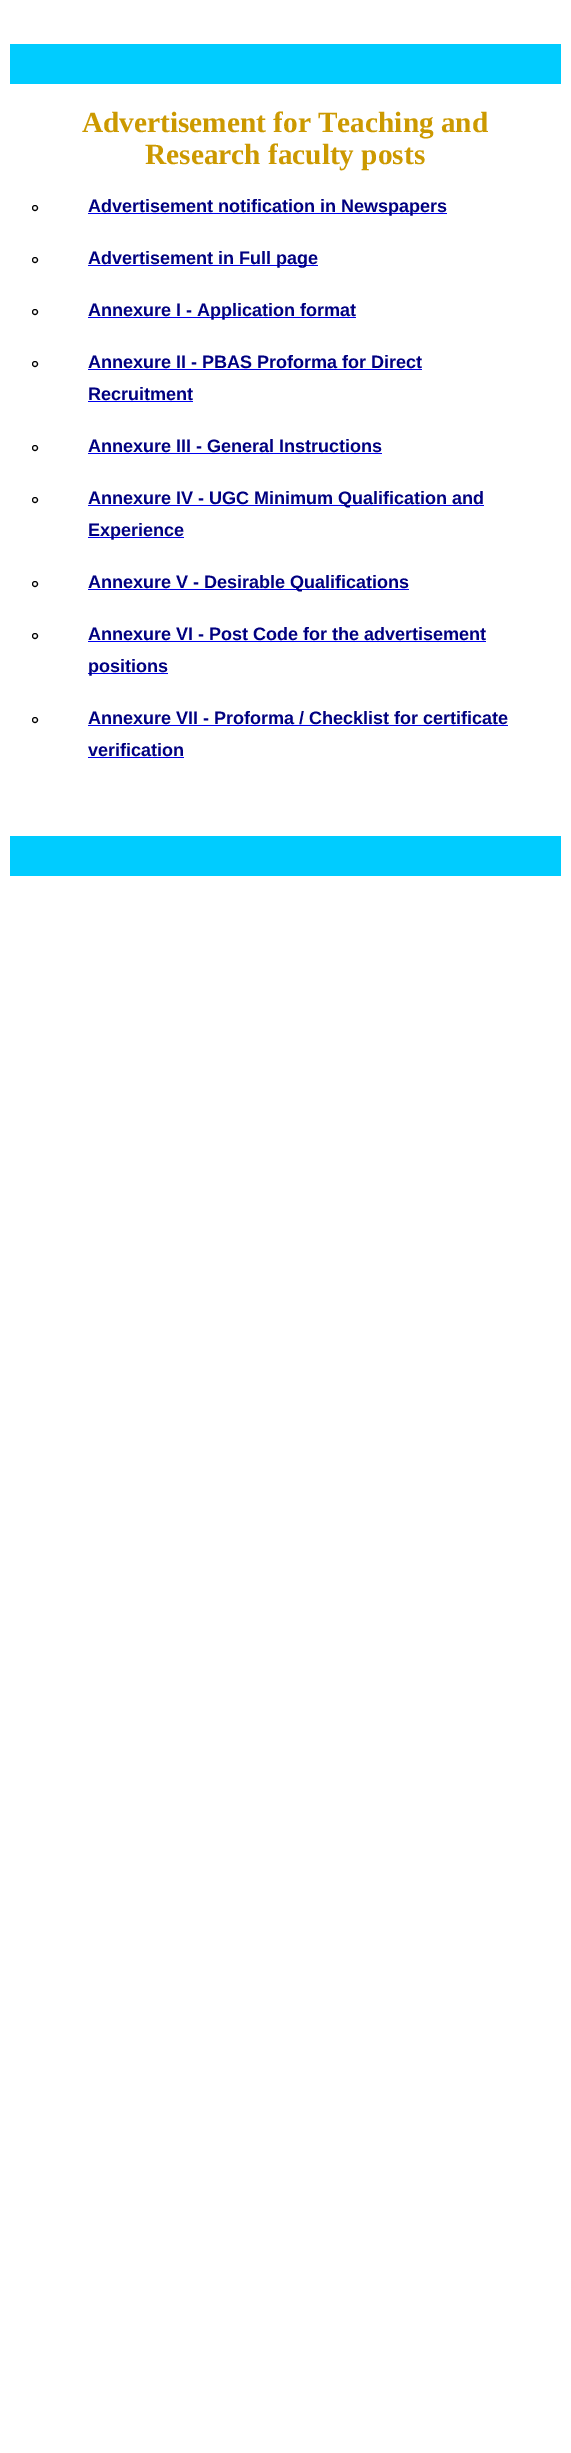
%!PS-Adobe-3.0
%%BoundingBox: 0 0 571 2453
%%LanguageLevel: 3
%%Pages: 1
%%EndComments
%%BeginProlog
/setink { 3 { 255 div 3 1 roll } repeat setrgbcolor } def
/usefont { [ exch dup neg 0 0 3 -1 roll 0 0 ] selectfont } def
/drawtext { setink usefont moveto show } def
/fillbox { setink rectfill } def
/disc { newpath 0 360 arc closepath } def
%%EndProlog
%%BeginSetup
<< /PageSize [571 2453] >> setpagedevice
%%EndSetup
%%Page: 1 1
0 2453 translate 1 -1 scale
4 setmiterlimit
0 0 571 2453 255 255 255 fillbox
10 44 551 40 0 204 255 fillbox
(Advertisement for Teaching and) 82 132 /LiberationSerif-Bold 29.3 204 153 0 drawtext
(Research faculty posts) 145 164 /LiberationSerif-Bold 29.3 204 153 0 drawtext
0 0 0 setink
35 208 2.5 disc stroke
88 213 359 1 0 0 238 fillbox
(Advertisement notification in Newspapers) 88 212 /LiberationSans-Bold 18 0 0 128 drawtext
0 0 0 setink
35 260 2.5 disc stroke
88 265 230 1 0 0 238 fillbox
(Advertisement in Full page) 88 264 /LiberationSans-Bold 18 0 0 128 drawtext
0 0 0 setink
35 312 2.5 disc stroke
88 317 268 1 0 0 238 fillbox
(Annexure I - Application format) 88 316 /LiberationSans-Bold 18 0 0 128 drawtext
0 0 0 setink
35 364 2.5 disc stroke
(Annexure II - PBAS Proforma for Direct) 88 368 /LiberationSans-Bold 18 0 0 128 drawtext
88 369 334 1 0 0 238 fillbox
(Recruitment) 88 400 /LiberationSans-Bold 18 0 0 128 drawtext
88 401 105 1 0 0 238 fillbox
0 0 0 setink
35 448 2.5 disc stroke
(Annexure III - General Instructions) 88 452 /LiberationSans-Bold 18 0 0 128 drawtext
88 453 294 1 0 0 238 fillbox
0 0 0 setink
35 500 2.5 disc stroke
88 505 396 1 0 0 238 fillbox
(Annexure IV - UGC Minimum Qualification and) 88 504 /LiberationSans-Bold 18 0 0 128 drawtext
88 537 96 1 0 0 238 fillbox
(Experience) 88 536 /LiberationSans-Bold 18 0 0 128 drawtext
0 0 0 setink
35 584 2.5 disc stroke
88 589 321 1 0 0 238 fillbox
(Annexure V - Desirable Qualifications) 88 588 /LiberationSans-Bold 18 0 0 128 drawtext
0 0 0 setink
35 636 2.5 disc stroke
(Annexure VI - Post Code for the advertisement) 88 640 /LiberationSans-Bold 18 0 0 128 drawtext
88 641 398 1 0 0 238 fillbox
88 673 80 1 0 0 238 fillbox
(positions) 88 672 /LiberationSans-Bold 18 0 0 128 drawtext
0 0 0 setink
35 720 2.5 disc stroke
(Annexure VII - Proforma / Checklist for certificate) 88 724 /LiberationSans-Bold 18 0 0 128 drawtext
88 725 420 1 0 0 238 fillbox
(verification) 88 756 /LiberationSans-Bold 18 0 0 128 drawtext
88 757 96 1 0 0 238 fillbox
10 836 551 40 0 204 255 fillbox
showpage
%%EOF
